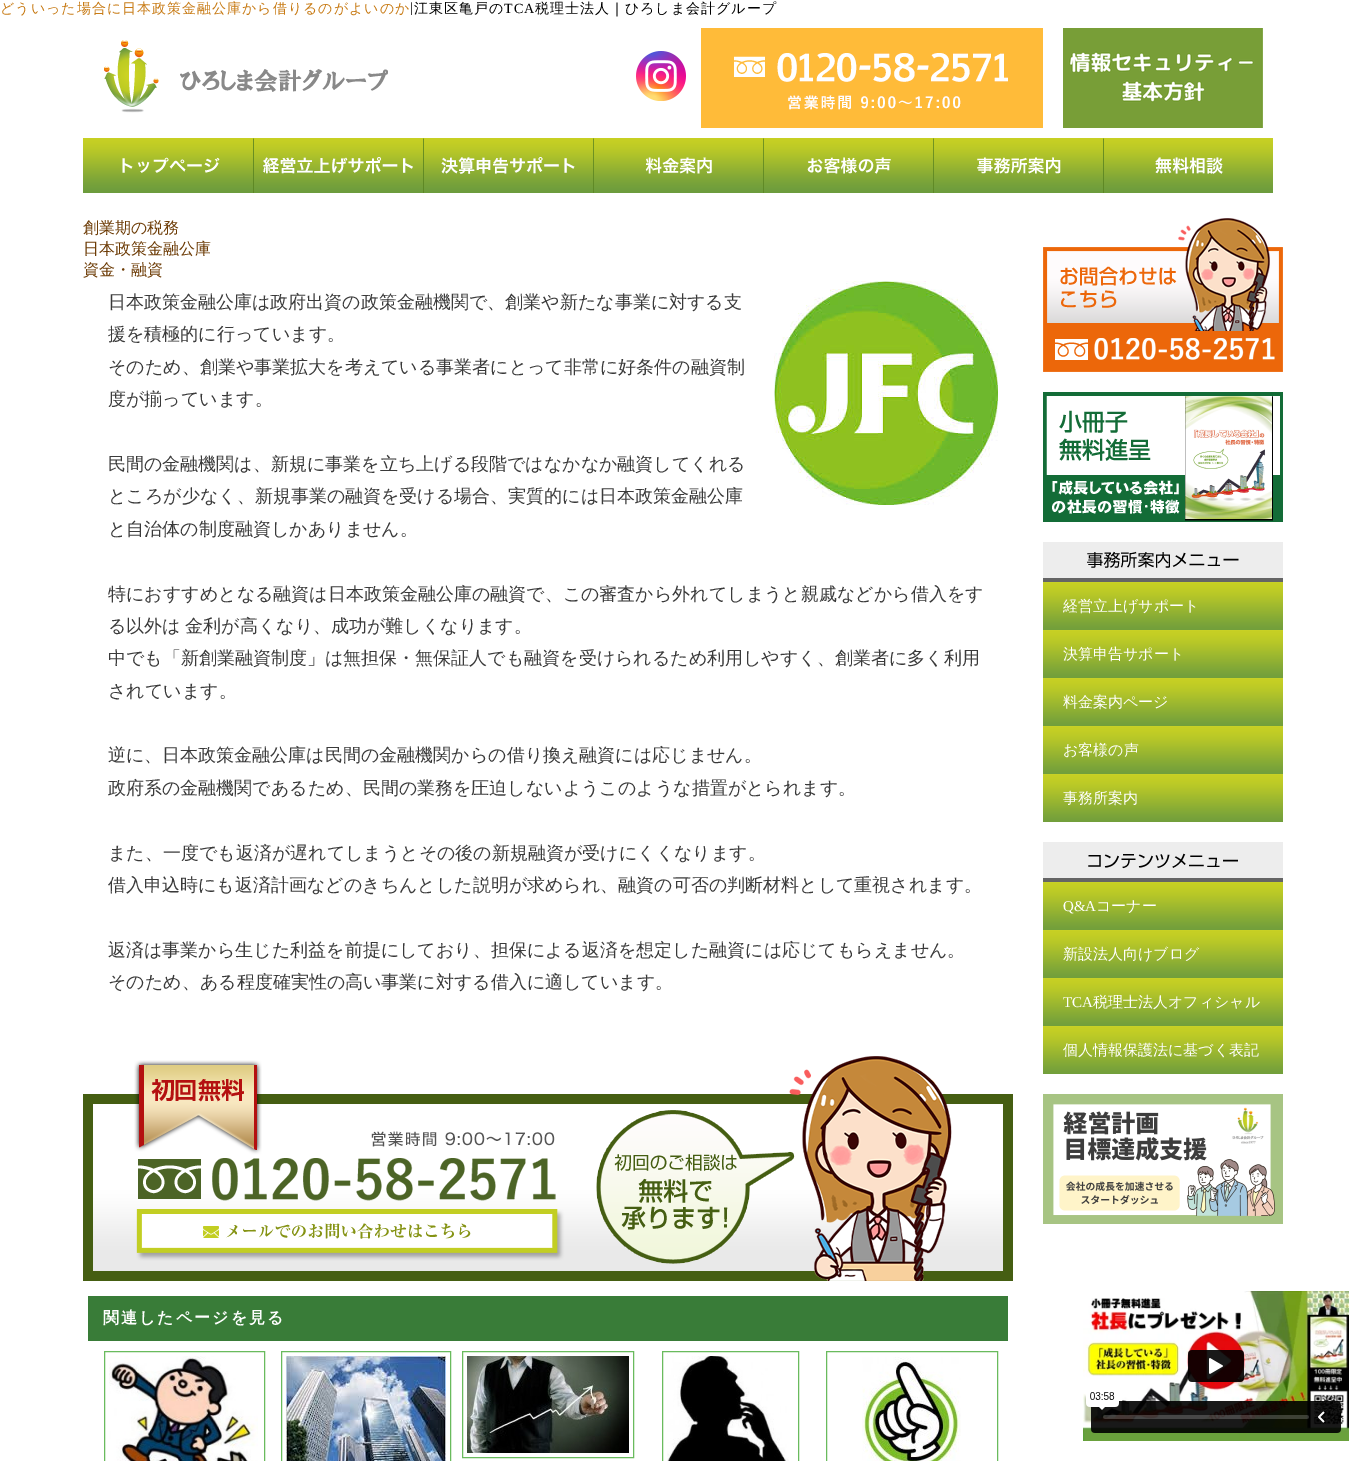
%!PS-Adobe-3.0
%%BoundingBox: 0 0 1366 1461
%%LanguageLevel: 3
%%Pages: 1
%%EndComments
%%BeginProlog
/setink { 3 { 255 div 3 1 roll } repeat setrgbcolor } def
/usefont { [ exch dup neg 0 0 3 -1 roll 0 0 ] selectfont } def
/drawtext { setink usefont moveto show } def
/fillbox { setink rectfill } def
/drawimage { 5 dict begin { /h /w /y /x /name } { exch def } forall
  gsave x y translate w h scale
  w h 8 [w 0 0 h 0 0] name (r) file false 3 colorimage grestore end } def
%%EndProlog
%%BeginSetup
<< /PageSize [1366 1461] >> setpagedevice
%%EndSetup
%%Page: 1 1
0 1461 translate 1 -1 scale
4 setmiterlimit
0 0 1366 1461 255 255 255 fillbox
/WenQuanYiZenHei-Medium 14 usefont
200 123 21 setink
0 13 moveto 1 0 (どういった場合に日本政策金融公庫から借りるのがよいのか) ashow
/LiberationSerif-Regular 14 usefont
0 0 0 setink
410 12 moveto 1 0 (|) ashow
/WenQuanYiZenHei-Medium 14 usefont
414 13 moveto 1 0 (江東区亀戸の) ashow
/LiberationSerif-Regular 14 usefont
504 13 moveto 1 0 (TCA) ashow
/WenQuanYiZenHei-Medium 14 usefont
535 13 moveto 1 0 (税理士法人｜ひろしま会計グループ) ashow
(assets/img1.rgb) 104 40 284 73 drawimage
(assets/img2.rgb) 636 51 50 50 drawimage
(assets/img3.rgb) 701 28 342 100 drawimage
(assets/img4.rgb) 1063 28 200 100 drawimage
(assets/img5.rgb) 83 138 170 55 drawimage
(assets/img6.rgb) 253 138 170 55 drawimage
(assets/img7.rgb) 423 138 170 55 drawimage
(assets/img8.rgb) 593 138 170 55 drawimage
(assets/img9.rgb) 763 138 170 55 drawimage
(assets/img10.rgb) 933 138 170 55 drawimage
(assets/img11.rgb) 1103 138 170 55 drawimage
(創業期の税務) 83 233 /WenQuanYiZenHei-Medium 16 109 60 6 drawtext
(日本政策金融公庫) 83 254 /WenQuanYiZenHei-Medium 16 109 60 6 drawtext
(資金・融資) 83 275 /WenQuanYiZenHei-Medium 16 109 60 6 drawtext
(assets/img12.rgb) 774 281 224 224 drawimage
(日本政策金融公庫は政府出資の政策金融機関で、創業や新たな事業に対する支) 108 308 /WenQuanYiZenHei-Medium 18 58 58 58 drawtext
(援を積極的に行っています。) 108 340 /WenQuanYiZenHei-Medium 18 58 58 58 drawtext
(そのため、創業や事業拡大を考えている事業者にとって非常に好条件の融資制) 108 373 /WenQuanYiZenHei-Medium 18 58 58 58 drawtext
(度が揃っています。) 108 405 /WenQuanYiZenHei-Medium 18 58 58 58 drawtext
(民間の金融機関は、新規に事業を立ち上げる段階ではなかなか融資してくれる) 108 470 /WenQuanYiZenHei-Medium 18 58 58 58 drawtext
(ところが少なく、新規事業の融資を受ける場合、実質的には日本政策金融公庫) 108 502 /WenQuanYiZenHei-Medium 18 58 58 58 drawtext
(と自治体の制度融資しかありません。) 108 535 /WenQuanYiZenHei-Medium 18 58 58 58 drawtext
(特におすすめとなる融資は日本政策金融公庫の融資で、この審査から外れてしまうと親戚などから借入をす) 108 600 /WenQuanYiZenHei-Medium 18 58 58 58 drawtext
108 632 moveto -1 0 32 (る以外は 金利が高くなり、成功が難しくなります。) widthshow
(中でも「新創業融資制度」は無担保・無保証人でも融資を受けられるため利用しやすく、創業者に多く利用) 108 664 /WenQuanYiZenHei-Medium 18 58 58 58 drawtext
(されています。) 108 697 /WenQuanYiZenHei-Medium 18 58 58 58 drawtext
(逆に、日本政策金融公庫は民間の金融機関からの借り換え融資には応じません。) 108 761 /WenQuanYiZenHei-Medium 18 58 58 58 drawtext
(政府系の金融機関であるため、民間の業務を圧迫しないようこのような措置がとられます。) 108 794 /WenQuanYiZenHei-Medium 18 58 58 58 drawtext
(また、一度でも返済が遅れてしまうとその後の新規融資が受けにくくなります。) 108 859 /WenQuanYiZenHei-Medium 18 58 58 58 drawtext
(借入申込時にも返済計画などのきちんとした説明が求められ、融資の可否の判断材料として重視されます。) 108 891 /WenQuanYiZenHei-Medium 18 58 58 58 drawtext
(返済は事業から生じた利益を前提にしており、担保による返済を想定した融資には応じてもらえません。) 108 956 /WenQuanYiZenHei-Medium 18 58 58 58 drawtext
(そのため、ある程度確実性の高い事業に対する借入に適しています。) 108 988 /WenQuanYiZenHei-Medium 18 58 58 58 drawtext
(assets/img13.rgb) 83 1056 930 225 drawimage
88 1296 920 45 57 124 56 fillbox
/WenQuanYiZenHei-Bold 16 usefont
255 255 255 setink
103 1323 moveto 2 0 (関連したページを見る) ashow
105 187 93 setink
104.5 1351.5 160 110 rectstroke
(assets/img14.rgb) 109 1356 149 105 drawimage
281.5 1351.5 169 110 rectstroke
(assets/img15.rgb) 286 1356 160 105 drawimage
462.5 1351.5 171 106 rectstroke
(assets/img16.rgb) 467 1356 162 97 drawimage
662.5 1351.5 136 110 rectstroke
(assets/img17.rgb) 667 1356 122 105 drawimage
826.5 1351.5 171 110 rectstroke
(assets/img18.rgb) 862 1357 99 104 drawimage
(assets/img19.rgb) 1083 1291 266 150 drawimage
(assets/img20.rgb) 1043 218 240 154 drawimage
(assets/img21.rgb) 1043 392 240 130 drawimage
(assets/img22.rgb) 1043 542 240 40 drawimage
(assets/img23.rgb) 1043 582 240 48 drawimage
(経営立上げサポート) 1063 611 /WenQuanYiZenHei-Medium 15 255 255 255 drawtext
(assets/img23.rgb) 1043 630 240 48 drawimage
(決算申告サポート) 1063 659 /WenQuanYiZenHei-Medium 15 255 255 255 drawtext
(assets/img23.rgb) 1043 678 240 48 drawimage
(料金案内ページ) 1063 707 /WenQuanYiZenHei-Medium 15 255 255 255 drawtext
(assets/img23.rgb) 1043 726 240 48 drawimage
(お客様の声) 1063 755 /WenQuanYiZenHei-Medium 15 255 255 255 drawtext
(assets/img23.rgb) 1043 774 240 48 drawimage
(事務所案内) 1063 803 /WenQuanYiZenHei-Medium 15 255 255 255 drawtext
(assets/img24.rgb) 1043 842 240 40 drawimage
(assets/img23.rgb) 1043 882 240 48 drawimage
(Q&A) 1063 911 /LiberationSerif-Regular 15 255 255 255 drawtext
(コーナー) 1096 911 /WenQuanYiZenHei-Medium 15 255 255 255 drawtext
(assets/img23.rgb) 1043 930 240 48 drawimage
(新設法人向けブログ) 1063 959 /WenQuanYiZenHei-Medium 15 255 255 255 drawtext
(assets/img23.rgb) 1043 978 240 48 drawimage
(TCA) 1063 1007 /LiberationSerif-Regular 15 255 255 255 drawtext
(税理士法人オフィシャル) 1093 1007 /WenQuanYiZenHei-Medium 15 255 255 255 drawtext
(assets/img23.rgb) 1043 1026 240 48 drawimage
(個人情報保護法に基づく表記) 1063 1055 /WenQuanYiZenHei-Medium 15 255 255 255 drawtext
(assets/img25.rgb) 1043 1094 240 130 drawimage
showpage
%%EOF
